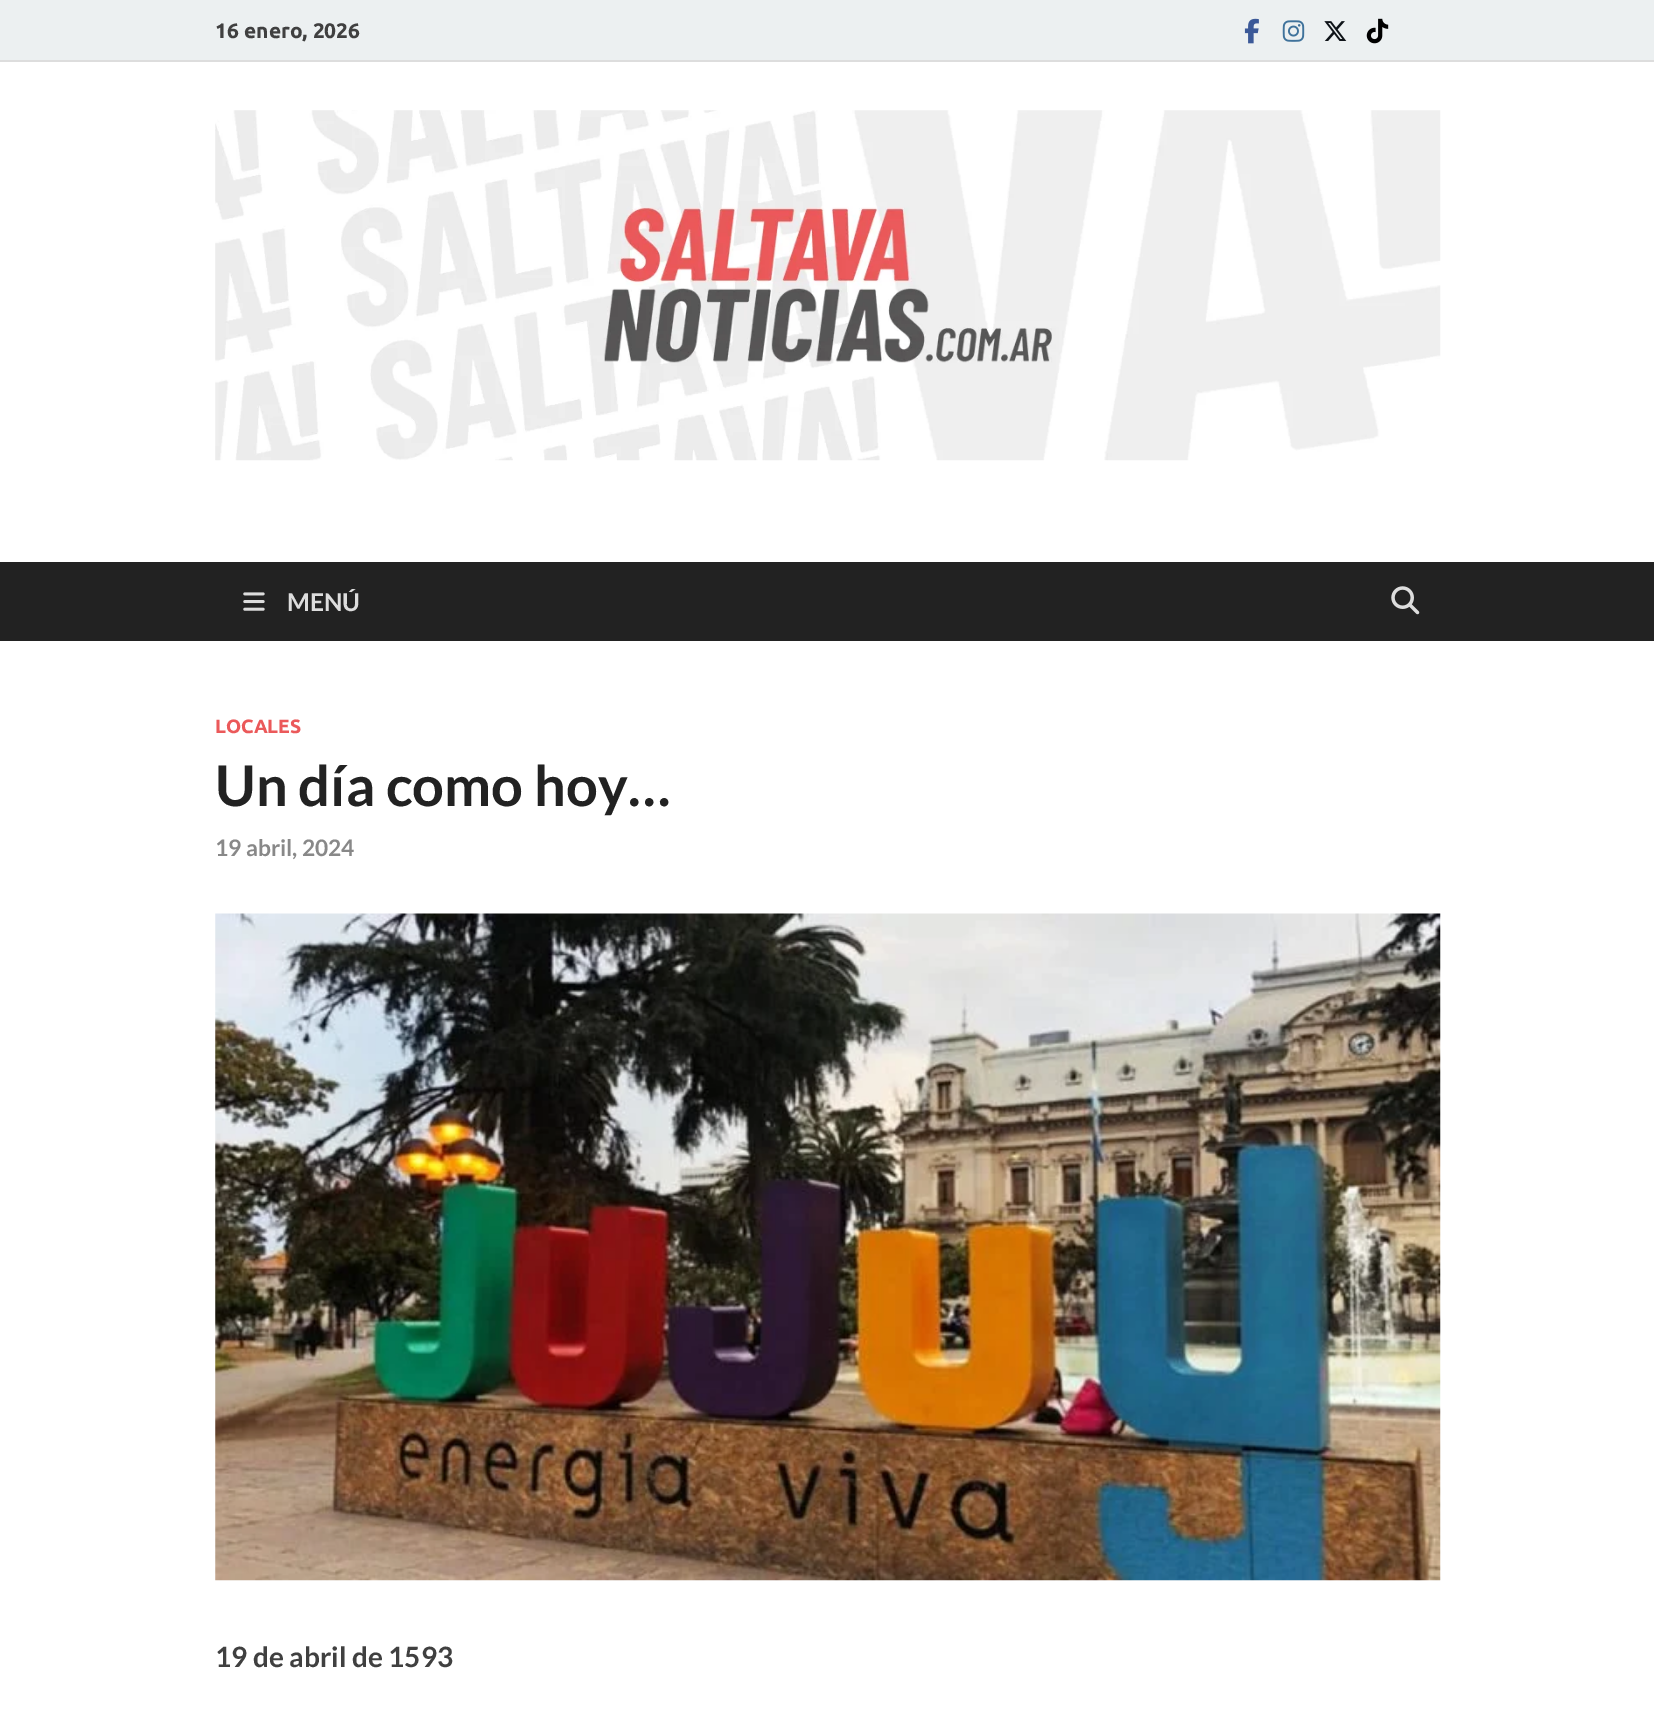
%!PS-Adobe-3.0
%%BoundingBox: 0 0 1654 1718
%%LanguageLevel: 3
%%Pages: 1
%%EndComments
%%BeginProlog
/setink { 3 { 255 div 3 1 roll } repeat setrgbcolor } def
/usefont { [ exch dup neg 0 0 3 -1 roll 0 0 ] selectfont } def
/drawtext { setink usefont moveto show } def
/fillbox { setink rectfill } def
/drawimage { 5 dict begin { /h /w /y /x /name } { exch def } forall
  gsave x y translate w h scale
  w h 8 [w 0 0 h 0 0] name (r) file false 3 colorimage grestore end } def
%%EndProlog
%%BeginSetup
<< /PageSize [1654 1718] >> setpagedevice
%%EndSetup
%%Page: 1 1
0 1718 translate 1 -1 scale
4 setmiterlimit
0 0 1654 1718 255 255 255 fillbox
0 0 1654 60 236 240 241 fillbox
0 60 1654 2 221 221 221 fillbox
(16 enero, 2026) 215 38 /Ubuntu-Bold 21 64 64 64 drawtext
(assets/img1.rgb) 1244 18 15 26 drawimage
(assets/img2.rgb) 1282 20 23 22 drawimage
(assets/img3.rgb) 1324 21 23 20 drawimage
(assets/img4.rgb) 1366 18 23 26 drawimage
(assets/img5.rgb) 215 110 1226 351 drawimage
0 562 1654 79 34 34 34 fillbox
(assets/img6.rgb) 243 592 22 19 drawimage
(MENÚ) 287 611 /Lato-Bold 24.5 221 221 221 drawtext
(assets/img7.rgb) 1391 586 29 29 drawimage
(LOCALES) 215 733 /Ubuntu-Bold 19.25 235 89 90 drawtext
(Un día como hoy…) 215 806 /Lato-Bold 56 34 34 34 drawtext
(19 abril, 2024) 215 856 /Lato-Bold 22.75 136 136 136 drawtext
(assets/img8.rgb) 215 913 1226 668 drawimage
(19 de abril de 1593) 215 1667 /Lato-Bold 28 64 64 64 drawtext
showpage
%%EOF
